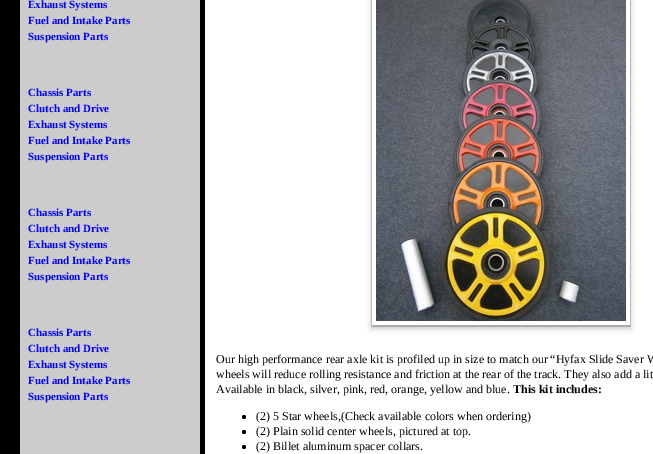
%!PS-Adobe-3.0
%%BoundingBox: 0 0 653 454
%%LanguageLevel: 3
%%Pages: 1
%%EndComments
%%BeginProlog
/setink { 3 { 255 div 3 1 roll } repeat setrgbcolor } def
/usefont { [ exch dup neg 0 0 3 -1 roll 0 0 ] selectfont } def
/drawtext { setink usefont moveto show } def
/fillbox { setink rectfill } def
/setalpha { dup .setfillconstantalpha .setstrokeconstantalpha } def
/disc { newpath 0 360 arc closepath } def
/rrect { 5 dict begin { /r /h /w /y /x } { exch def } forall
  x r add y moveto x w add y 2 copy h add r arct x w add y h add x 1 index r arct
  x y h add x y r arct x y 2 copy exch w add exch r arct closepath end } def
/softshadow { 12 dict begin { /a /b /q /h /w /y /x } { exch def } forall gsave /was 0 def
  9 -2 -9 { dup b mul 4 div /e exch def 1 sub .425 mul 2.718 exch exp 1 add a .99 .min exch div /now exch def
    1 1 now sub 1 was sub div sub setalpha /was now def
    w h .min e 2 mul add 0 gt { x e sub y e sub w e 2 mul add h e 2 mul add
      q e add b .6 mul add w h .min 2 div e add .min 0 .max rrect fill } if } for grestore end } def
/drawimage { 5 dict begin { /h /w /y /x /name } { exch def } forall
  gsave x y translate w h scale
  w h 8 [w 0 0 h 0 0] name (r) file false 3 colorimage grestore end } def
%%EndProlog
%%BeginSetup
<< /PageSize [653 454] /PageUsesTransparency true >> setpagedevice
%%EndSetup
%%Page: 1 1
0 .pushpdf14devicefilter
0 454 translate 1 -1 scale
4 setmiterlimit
0 0 653 454 255 255 255 fillbox
0 0 20 454 0 0 0 fillbox
200 0 5 454 0 0 0 fillbox
20 0 180 454 204 204 204 fillbox
(Exhaust Systems) 28 8 /LiberationSerif-Bold 11 0 0 255 drawtext
(Fuel and Intake Parts) 28 24 /LiberationSerif-Bold 11 0 0 255 drawtext
(Suspension Parts) 28 40 /LiberationSerif-Bold 11 0 0 255 drawtext
(Chassis Parts) 28 96 /LiberationSerif-Bold 11 0 0 255 drawtext
(Clutch and Drive) 28 112 /LiberationSerif-Bold 11 0 0 255 drawtext
(Exhaust Systems) 28 128 /LiberationSerif-Bold 11 0 0 255 drawtext
(Fuel and Intake Parts) 28 144 /LiberationSerif-Bold 11 0 0 255 drawtext
(Suspension Parts) 28 160 /LiberationSerif-Bold 11 0 0 255 drawtext
(Chassis Parts) 28 216 /LiberationSerif-Bold 11 0 0 255 drawtext
(Clutch and Drive) 28 232 /LiberationSerif-Bold 11 0 0 255 drawtext
(Exhaust Systems) 28 248 /LiberationSerif-Bold 11 0 0 255 drawtext
(Fuel and Intake Parts) 28 264 /LiberationSerif-Bold 11 0 0 255 drawtext
(Suspension Parts) 28 280 /LiberationSerif-Bold 11 0 0 255 drawtext
(Chassis Parts) 28 336 /LiberationSerif-Bold 11 0 0 255 drawtext
(Clutch and Drive) 28 352 /LiberationSerif-Bold 11 0 0 255 drawtext
(Exhaust Systems) 28 368 /LiberationSerif-Bold 11 0 0 255 drawtext
(Fuel and Intake Parts) 28 384 /LiberationSerif-Bold 11 0 0 255 drawtext
(Suspension Parts) 28 400 /LiberationSerif-Bold 11 0 0 255 drawtext
gsave
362 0 moveto 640 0 lineto 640 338 lineto 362 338 lineto closepath 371 -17 moveto 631 -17 lineto 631 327 lineto 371 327 lineto closepath eoclip newpath
204 204 204 setink
371 -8 260 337 0 2.5 1 softshadow
grestore
187 187 187 setink
631 -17 moveto 631 327 lineto 630 325 lineto 630 -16 lineto closepath fill
170 170 170 setink
631 327 moveto 371 327 lineto 372 325 lineto 630 325 lineto closepath fill
187 187 187 setink
371 327 moveto 371 -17 lineto 372 -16 lineto 372 325 lineto closepath fill
(assets/img1.rgb) 376 0 250 321 drawimage
(Our high performance rear axle kit is profiled up in size to match our “Hyfax Slide Saver W) 216 363 /LiberationSerif-Regular 12 0 0 0 drawtext
(wheels will reduce rolling resistance and friction at the rear of the track. They also add a lit) 216 378 /LiberationSerif-Regular 12 0 0 0 drawtext
(Available in black, silver, pink, red, orange, yellow and blue.) 216 393 /LiberationSerif-Regular 12 0 0 0 drawtext
(This kit includes:) 513 393 /LiberationSerif-Bold 12 0 0 0 drawtext
244 417 2 disc fill
(\(2\) 5 Star wheels,\(Check available colors when ordering\)) 256 420 /LiberationSerif-Regular 12 0 0 0 drawtext
244 432 2 disc fill
(\(2\) Plain solid center wheels, pictured at top.) 256 435 /LiberationSerif-Regular 12 0 0 0 drawtext
244 447 2 disc fill
(\(2\) Billet aluminum spacer collars.) 256 450 /LiberationSerif-Regular 12 0 0 0 drawtext
.poppdf14devicefilter showpage
%%EOF
